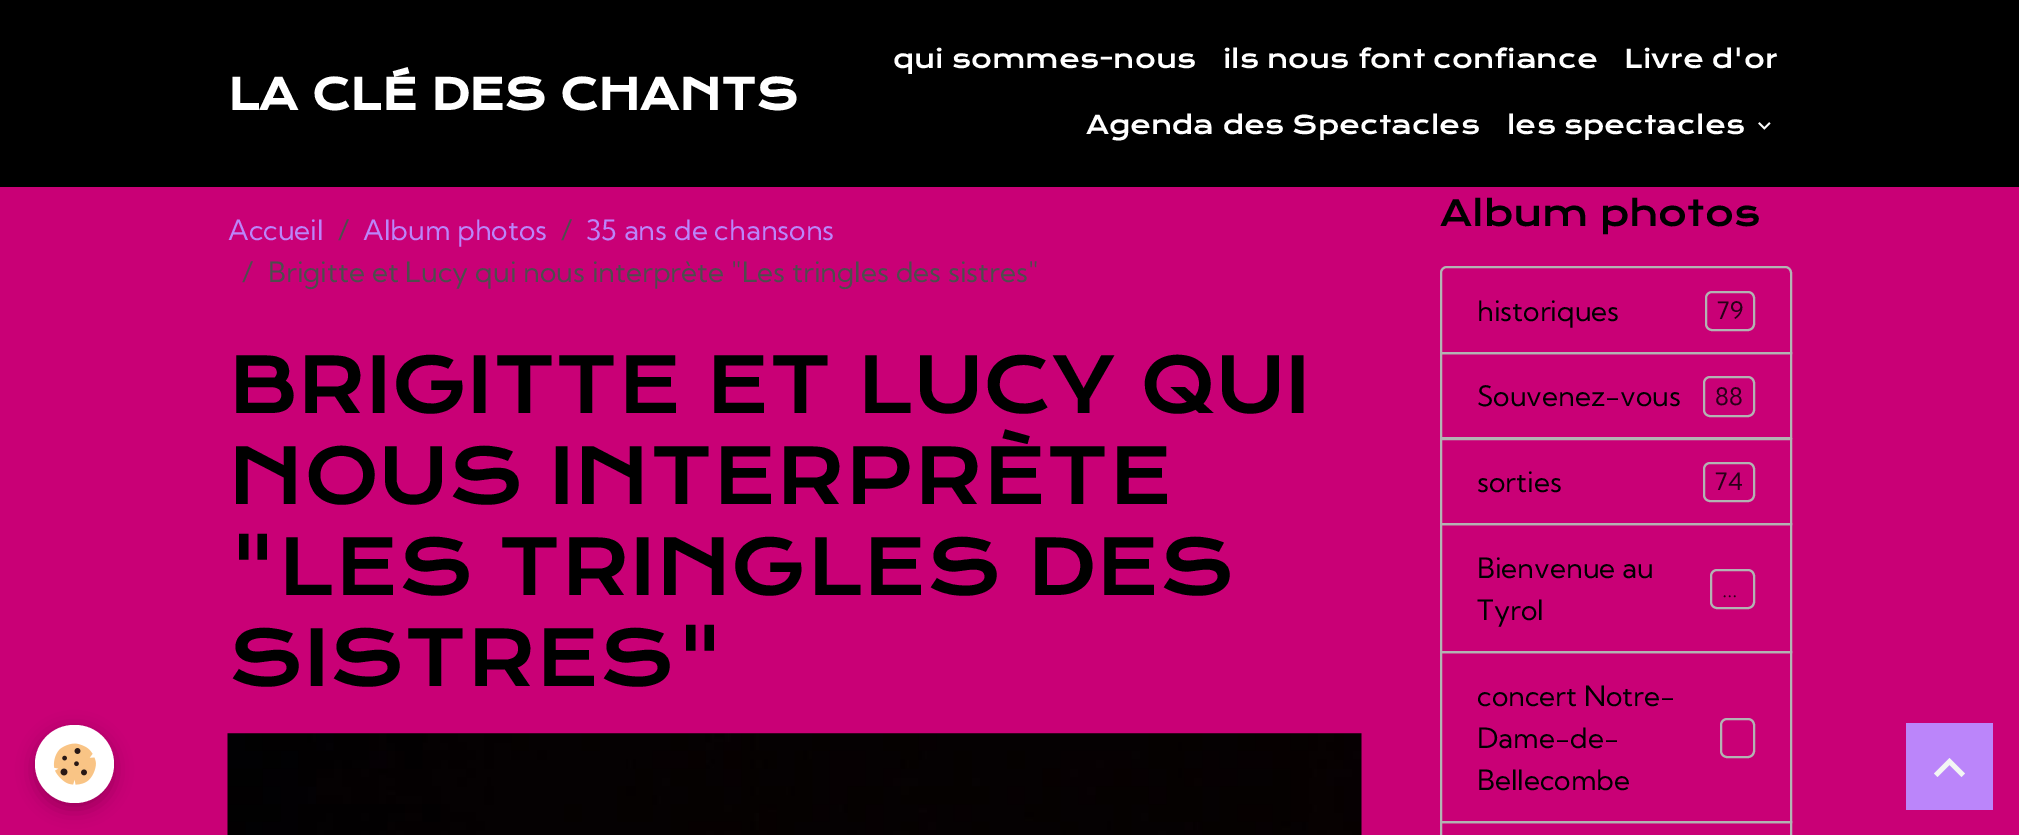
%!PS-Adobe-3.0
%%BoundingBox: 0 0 2019 835
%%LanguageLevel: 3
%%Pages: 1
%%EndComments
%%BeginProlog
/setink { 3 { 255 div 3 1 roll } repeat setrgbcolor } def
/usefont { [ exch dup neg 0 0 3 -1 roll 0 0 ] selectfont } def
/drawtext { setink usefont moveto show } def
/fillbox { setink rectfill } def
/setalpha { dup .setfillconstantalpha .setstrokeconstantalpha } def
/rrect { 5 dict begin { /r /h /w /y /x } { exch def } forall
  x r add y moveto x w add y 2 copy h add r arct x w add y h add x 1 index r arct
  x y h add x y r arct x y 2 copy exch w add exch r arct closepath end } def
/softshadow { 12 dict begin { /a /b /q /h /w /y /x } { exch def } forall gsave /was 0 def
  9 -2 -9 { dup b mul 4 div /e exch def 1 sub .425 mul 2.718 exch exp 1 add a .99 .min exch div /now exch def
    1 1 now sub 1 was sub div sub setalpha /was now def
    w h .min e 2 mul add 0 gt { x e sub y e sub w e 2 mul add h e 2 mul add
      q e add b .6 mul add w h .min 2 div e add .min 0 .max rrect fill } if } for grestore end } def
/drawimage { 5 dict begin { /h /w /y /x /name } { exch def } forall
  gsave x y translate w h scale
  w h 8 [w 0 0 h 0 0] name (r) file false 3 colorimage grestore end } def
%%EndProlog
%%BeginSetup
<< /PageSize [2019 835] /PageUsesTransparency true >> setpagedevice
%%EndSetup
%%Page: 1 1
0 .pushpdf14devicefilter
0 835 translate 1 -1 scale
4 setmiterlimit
0 0 2019 835 201 0 118 fillbox
0 0 2019 187 0 0 0 fillbox
(LA CLÉ DES CHANTS) 228 110 /KronaOne-Bold 42 255 255 255 drawtext
(qui sommes-nous) 893 68 /KronaOne-Regular 25.25 255 255 255 drawtext
(ils nous font confiance) 1223 68 /KronaOne-Regular 25.25 255 255 255 drawtext
(Livre d'or) 1624 68 /KronaOne-Regular 25.25 255 255 255 drawtext
(Agenda des Spectacles) 1086 134 /KronaOne-Regular 25.25 255 255 255 drawtext
(les spectacles) 1507 134 /KronaOne-Regular 25.25 255 255 255 drawtext
(assets/img1.rgb) 1758 122 13 8 drawimage
0 0 0 setink
35 730 79 79 39.5 9 0.24 softshadow
255 255 255 setink
35 725 79 78 39 rrect fill
(assets/img2.rgb) 53 743 43 42 drawimage
(Accueil) 228 240 /KumbhSans-Regular 28 187 133 250 drawtext
(/) 338 240 /KumbhSans-Regular 28 77 77 77 drawtext
(Album photos) 363 240 /KumbhSans-Regular 28 187 133 250 drawtext
(/) 561 240 /KumbhSans-Regular 28 77 77 77 drawtext
(35 ans de chansons) 586 240 /KumbhSans-Regular 28 187 133 250 drawtext
(/) 242 282 /KumbhSans-Regular 28 77 77 77 drawtext
(Brigitte et Lucy qui nous interprète "Les tringles des sistres") 268 282 /KumbhSans-Regular 28 77 77 77 drawtext
(BRIGITTE ET LUCY QUI) 228 413 /KronaOne-Regular 75.6 0 0 0 drawtext
(NOUS INTERPRÈTE) 228 504 /KronaOne-Regular 75.6 0 0 0 drawtext
("LES TRINGLES DES) 228 595 /KronaOne-Regular 75.6 0 0 0 drawtext
(SISTRES") 228 686 /KronaOne-Regular 75.6 0 0 0 drawtext
(assets/img3.rgb) 227 733 1135 102 drawimage
(Album photos) 1440 226 /KronaOne-Regular 35 0 0 0 drawtext
179 179 179 setink
2 setlinewidth
1447 267 moveto 1785 267 lineto 1788.5 267 1791 269.5 1791 273 curveto 1791 353 lineto 1441 353 lineto 1441 273 lineto 1441 269.5 1443.5 267 1447 267 curveto closepath stroke
(historiques) 1477 321 /KumbhSans-Regular 28 0 0 0 drawtext
179 179 179 setink
1706 292 48 38 6 rrect stroke
(79) 1717 319 /KumbhSans-Regular 24 40 0 24 drawtext
179 179 179 setink
1441 353 350 85 rectstroke
(Souvenez-vous) 1477 406 /KumbhSans-Regular 28 0 0 0 drawtext
179 179 179 setink
1704 377 50 39 6 rrect stroke
(88) 1715 405 /KumbhSans-Regular 24 40 0 24 drawtext
179 179 179 setink
1441 439 350 85 rectstroke
(sorties) 1477 492 /KumbhSans-Regular 28 0 0 0 drawtext
179 179 179 setink
1704 463 50 38 6 rrect stroke
(74) 1715 490 /KumbhSans-Regular 24 40 0 24 drawtext
179 179 179 setink
1441 524 350 128 rectstroke
(Bienvenue au) 1477 578 /KumbhSans-Regular 28 0 0 0 drawtext
179 179 179 setink
1711 570 43 38 6 rrect stroke
(…) 1722 597 /KumbhSans-Regular 24 40 0 24 drawtext
(Tyrol) 1477 620 /KumbhSans-Regular 28 0 0 0 drawtext
179 179 179 setink
1441 652 350 170 rectstroke
(concert Notre-) 1477 706 /KumbhSans-Regular 28 0 0 0 drawtext
(Dame-de-) 1477 748 /KumbhSans-Regular 28 0 0 0 drawtext
179 179 179 setink
1721 719 33 38 6 rrect stroke
(Bellecombe) 1477 790 /KumbhSans-Regular 28 0 0 0 drawtext
179 179 179 setink
1441 822 350 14 rectstroke
1906 723 87 87 187 133 250 fillbox
243 246 244 setink
1949.5 758 moveto 1965 773.5 lineto 1961.5 777 lineto 1949.5 765 lineto 1937.5 777 lineto 1934 773.5 lineto closepath fill
.poppdf14devicefilter showpage
%%EOF
